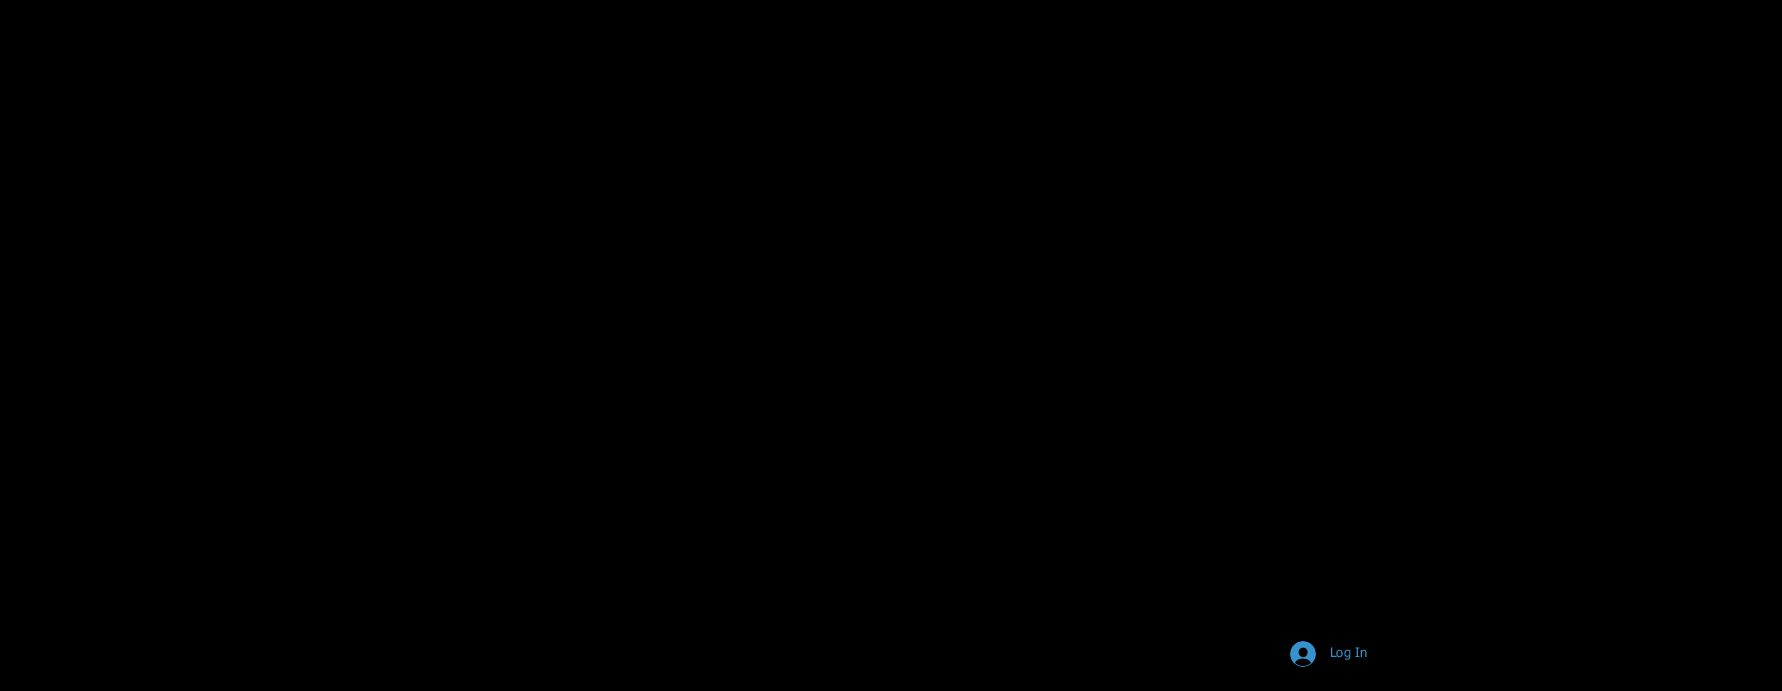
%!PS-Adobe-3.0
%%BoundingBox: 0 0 1782 691
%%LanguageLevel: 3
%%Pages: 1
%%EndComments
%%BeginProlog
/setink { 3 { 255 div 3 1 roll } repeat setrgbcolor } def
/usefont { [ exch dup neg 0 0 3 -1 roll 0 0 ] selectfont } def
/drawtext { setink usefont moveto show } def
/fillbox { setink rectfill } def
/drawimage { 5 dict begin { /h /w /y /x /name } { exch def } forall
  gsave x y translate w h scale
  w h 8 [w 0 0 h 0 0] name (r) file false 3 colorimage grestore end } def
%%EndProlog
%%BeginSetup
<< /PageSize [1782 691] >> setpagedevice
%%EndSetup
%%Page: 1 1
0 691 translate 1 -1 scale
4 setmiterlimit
0 0 1782 691 0 0 0 fillbox
(assets/img1.rgb) 1290 641 26 26 drawimage
(Log In) 1330 657 /tahoma-Regular 13 53 146 204 drawtext
showpage
%%EOF
